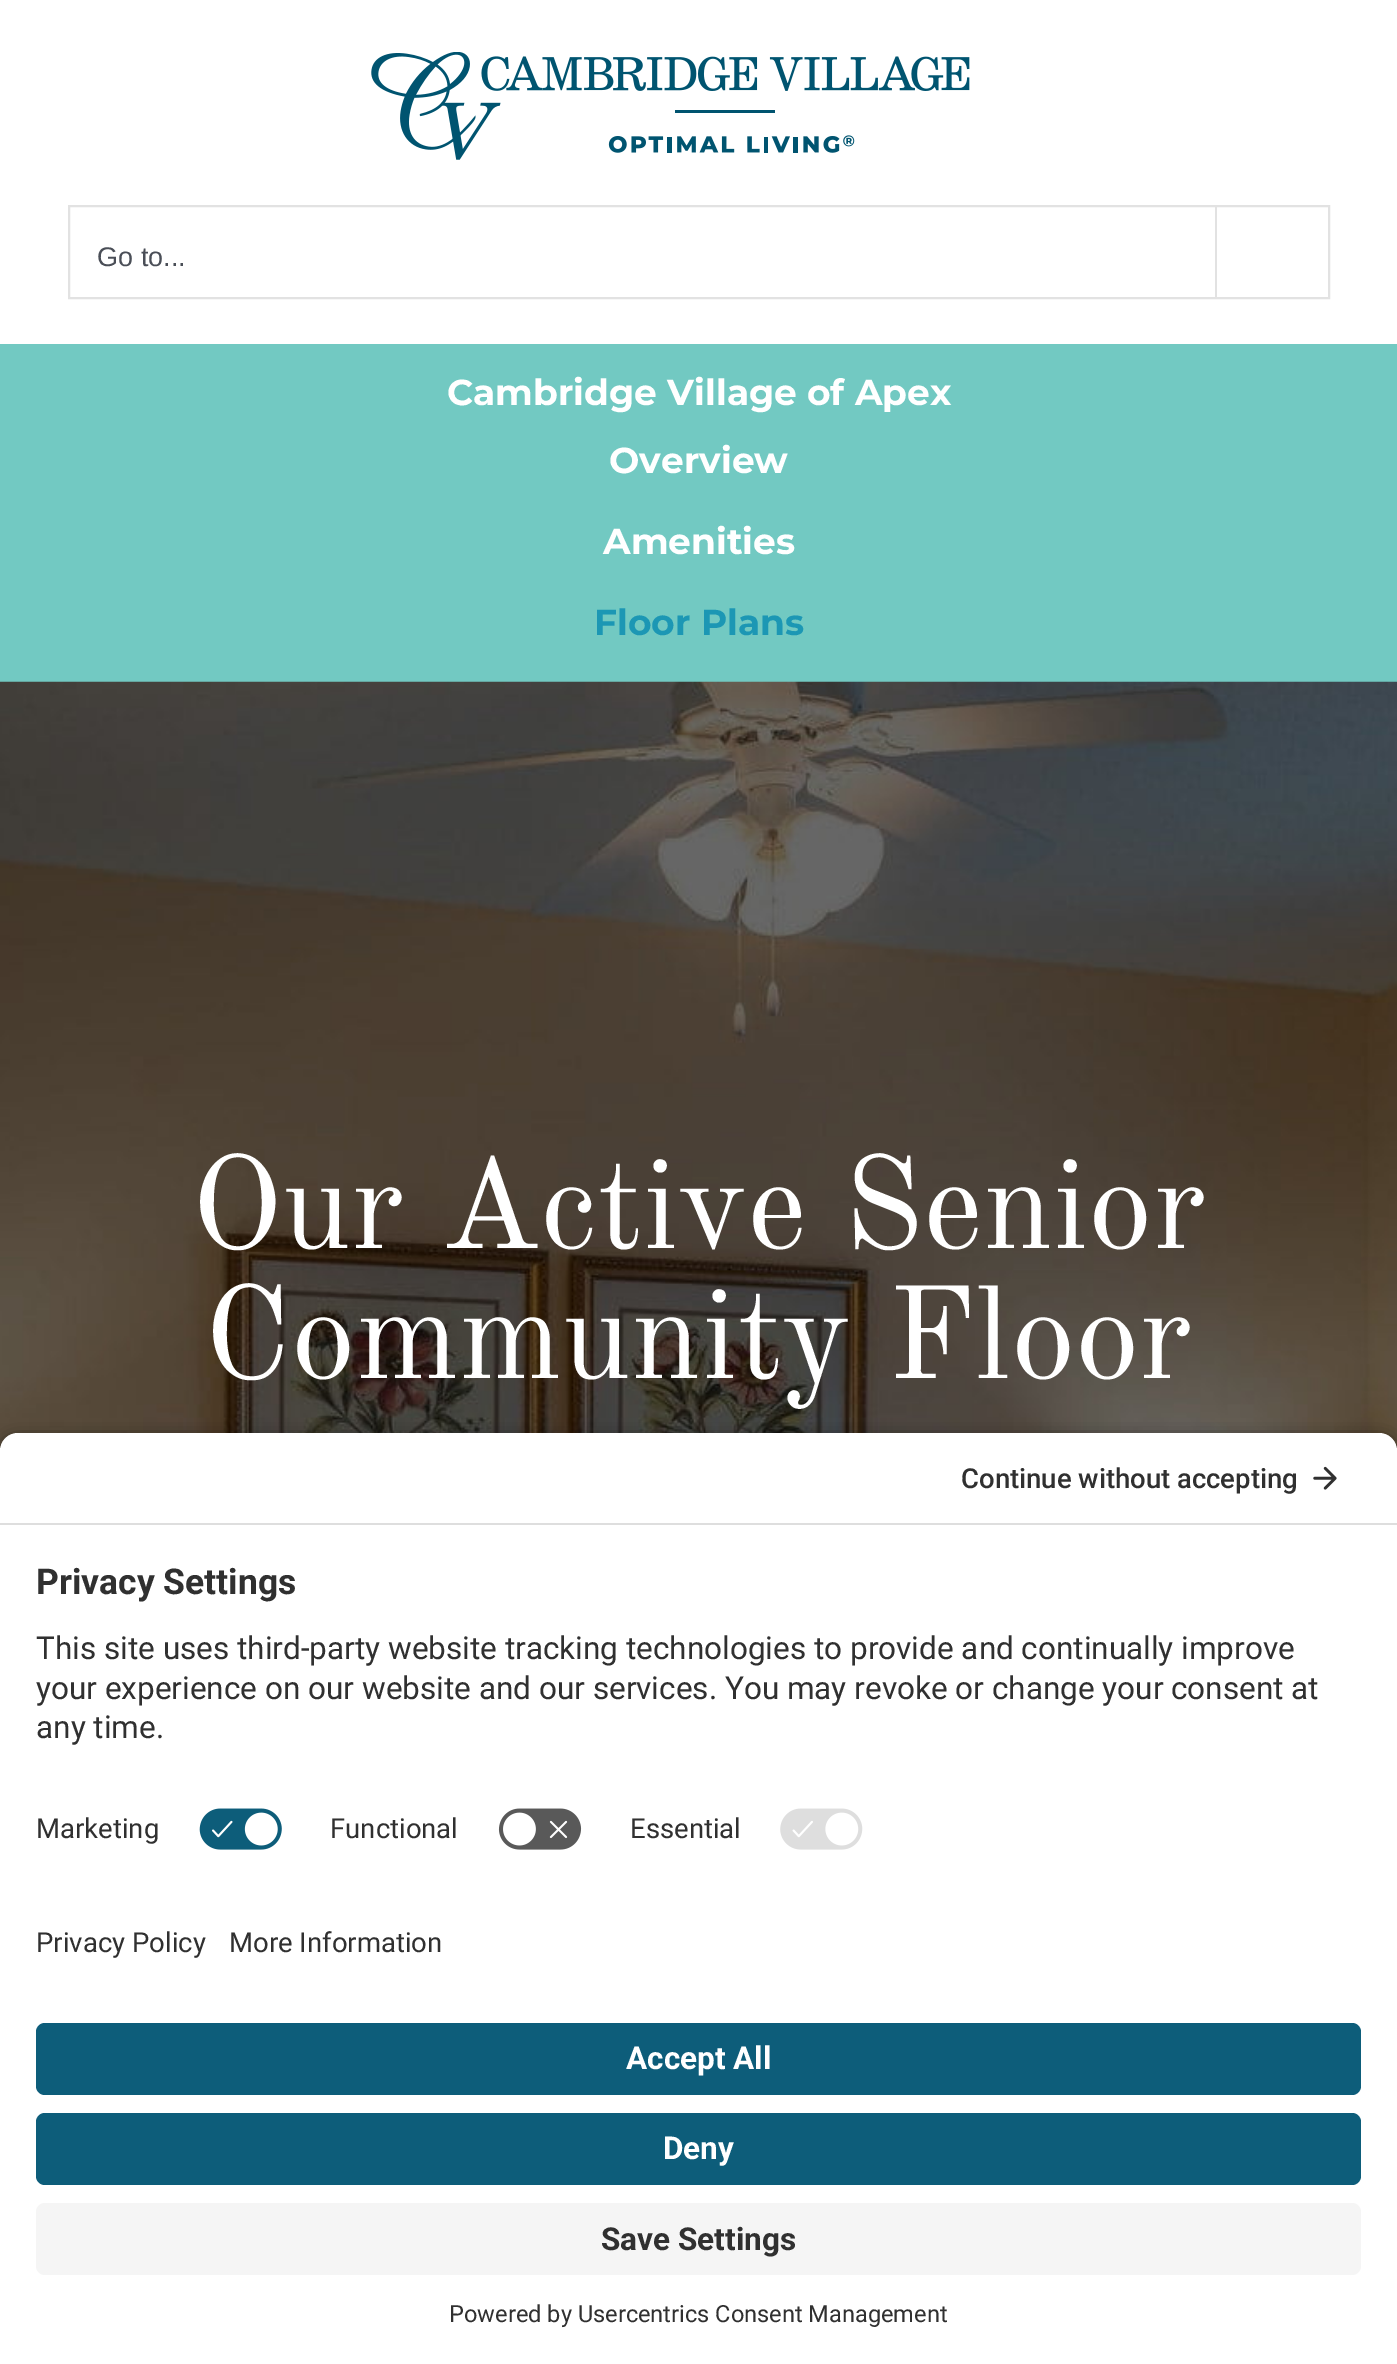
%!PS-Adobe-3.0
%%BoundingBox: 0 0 1397 2364
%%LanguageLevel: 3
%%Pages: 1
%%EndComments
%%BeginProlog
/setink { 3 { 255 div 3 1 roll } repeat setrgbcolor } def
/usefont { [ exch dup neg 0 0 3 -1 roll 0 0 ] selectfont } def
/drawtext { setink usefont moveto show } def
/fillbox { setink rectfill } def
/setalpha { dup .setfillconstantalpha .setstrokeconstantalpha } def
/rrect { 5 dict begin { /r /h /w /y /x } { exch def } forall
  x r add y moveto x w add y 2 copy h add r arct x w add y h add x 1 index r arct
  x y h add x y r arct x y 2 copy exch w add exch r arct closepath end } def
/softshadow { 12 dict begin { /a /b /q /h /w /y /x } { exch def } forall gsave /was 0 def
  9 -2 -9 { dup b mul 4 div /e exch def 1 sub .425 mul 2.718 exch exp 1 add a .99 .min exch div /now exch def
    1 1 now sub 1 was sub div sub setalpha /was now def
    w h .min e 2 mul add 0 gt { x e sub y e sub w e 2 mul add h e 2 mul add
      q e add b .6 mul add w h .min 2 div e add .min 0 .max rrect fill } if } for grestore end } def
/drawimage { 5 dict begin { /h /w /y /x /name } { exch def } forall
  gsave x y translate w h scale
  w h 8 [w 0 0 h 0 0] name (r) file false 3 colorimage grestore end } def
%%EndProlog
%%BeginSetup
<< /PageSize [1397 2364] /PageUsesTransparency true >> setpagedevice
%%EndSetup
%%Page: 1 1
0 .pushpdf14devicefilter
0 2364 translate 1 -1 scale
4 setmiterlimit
0 0 1397 2364 255 255 255 fillbox
(assets/img1.rgb) 371 52 599 108 drawimage
226 226 226 setink
2 setlinewidth
69 206 1260 92 rectstroke
(Go to...) 97 266 /LiberationSans-Regular 27 74 78 87 drawtext
1215 207 2 90 226 226 226 fillbox
0 344 1397 338 114 201 194 fillbox
(Cambridge Village of Apex) 447 405 /Montserrat-Bold 36 255 255 255 drawtext
(Overview) 609 473 /Montserrat-Bold 36 255 255 255 drawtext
(Amenities) 603 554 /Montserrat-Bold 36 255 255 255 drawtext
(Floor Plans) 594 635 /Montserrat-Bold 36 28 151 180 drawtext
(assets/img2.rgb) 0 681 1397 770 drawimage
(Our Active Senior) 191 1248 /OldStandardTT-Regular 130 255 255 255 drawtext
(Community Floor) 204 1378 /OldStandardTT-Regular 130 255 255 255 drawtext
0 0 0 setink
0 1440 1397 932 18 8 0.8 softshadow
255 255 255 setink
18 1433 moveto 1379 1433 lineto 1389 1433 1397 1441 1397 1451 curveto 1397 1526 lineto 0 1526 lineto 0 1451 lineto 0 1441 8 1433 18 1433 curveto closepath fill
0 1523 1397 2 222 222 222 fillbox
(Continue without accepting) 961 1488 /Roboto-Medium 27.5 48 48 48 drawtext
(assets/img3.rgb) 1313 1466 24 24 drawimage
0 1526 1397 838 255 255 255 fillbox
(Privacy Settings) 36 1594 /Roboto-Bold 35.5 48 48 48 drawtext
(This site uses third-party website tracking technologies to provide and continually improve) 36 1659 /Roboto-Regular 31.5 48 48 48 drawtext
(your experience on our website and our services. You may revoke or change your consent at) 36 1699 /Roboto-Regular 31.5 48 48 48 drawtext
(any time.) 36 1738 /Roboto-Regular 31.5 48 48 48 drawtext
(Marketing) 36 1838 /Roboto-Regular 27.5 48 48 48 drawtext
(assets/img4.rgb) 199 1808 83 42 drawimage
(Functional) 330 1838 /Roboto-Regular 27.5 48 48 48 drawtext
(assets/img5.rgb) 498 1808 84 42 drawimage
(Essential) 630 1838 /Roboto-Regular 27.5 48 48 48 drawtext
(assets/img6.rgb) 780 1808 83 42 drawimage
(Privacy Policy) 36 1952 /Roboto-Regular 27.5 48 48 48 drawtext
(More Information) 229 1952 /Roboto-Regular 27.5 48 48 48 drawtext
13 93 122 setink
36 2023 1325 72 9 rrect fill
(Accept All) 626 2069 /Roboto-Bold 31.5 255 255 255 drawtext
13 93 122 setink
36 2113 1325 72 9 rrect fill
(Deny) 663 2159 /Roboto-Bold 31.5 255 255 255 drawtext
245 245 245 setink
36 2203 1325 72 9 rrect fill
(Save Settings) 601 2250 /Roboto-Bold 31.5 48 48 48 drawtext
(Powered by Usercentrics Consent Management) 449 2322 /Roboto-Regular 23.6 48 48 48 drawtext
.poppdf14devicefilter showpage
%%EOF
